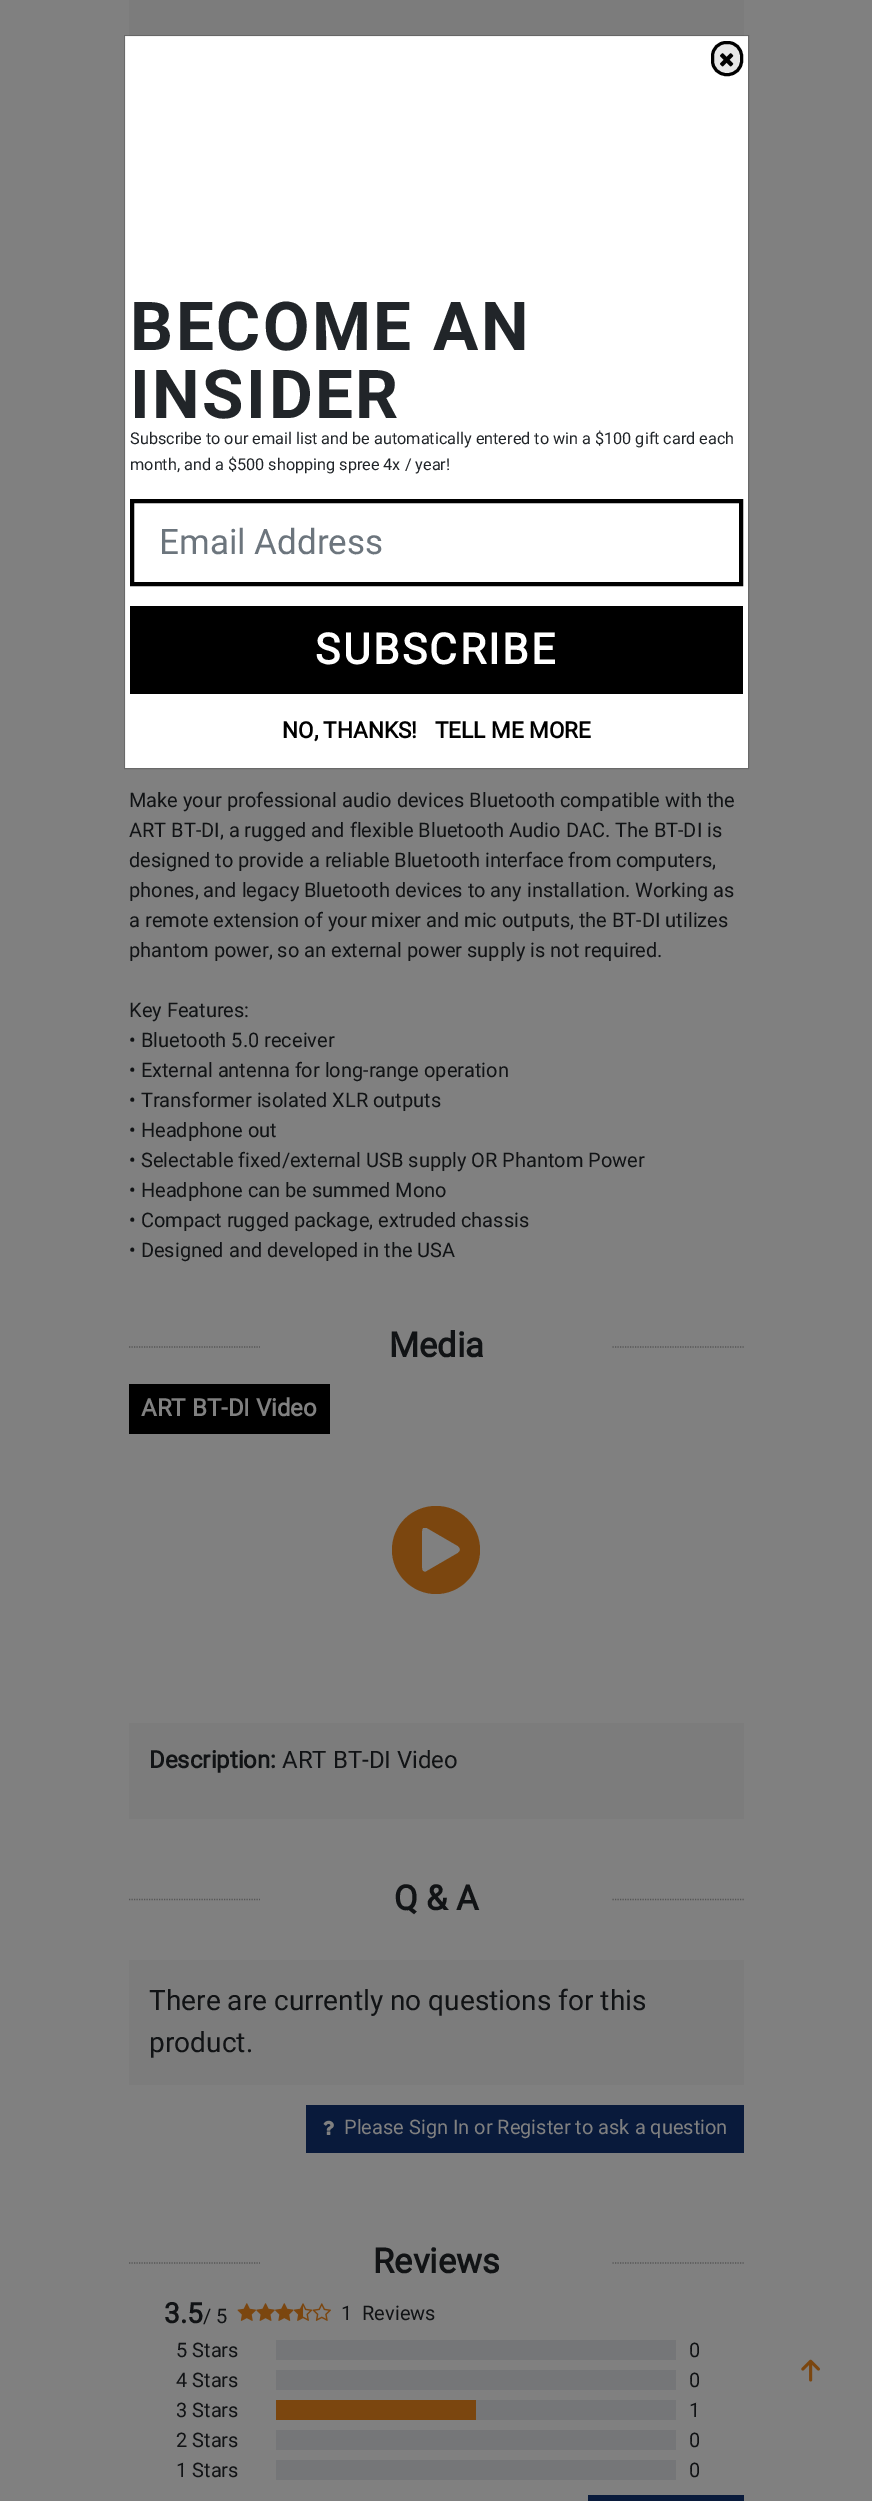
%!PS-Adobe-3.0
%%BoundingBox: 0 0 872 2501
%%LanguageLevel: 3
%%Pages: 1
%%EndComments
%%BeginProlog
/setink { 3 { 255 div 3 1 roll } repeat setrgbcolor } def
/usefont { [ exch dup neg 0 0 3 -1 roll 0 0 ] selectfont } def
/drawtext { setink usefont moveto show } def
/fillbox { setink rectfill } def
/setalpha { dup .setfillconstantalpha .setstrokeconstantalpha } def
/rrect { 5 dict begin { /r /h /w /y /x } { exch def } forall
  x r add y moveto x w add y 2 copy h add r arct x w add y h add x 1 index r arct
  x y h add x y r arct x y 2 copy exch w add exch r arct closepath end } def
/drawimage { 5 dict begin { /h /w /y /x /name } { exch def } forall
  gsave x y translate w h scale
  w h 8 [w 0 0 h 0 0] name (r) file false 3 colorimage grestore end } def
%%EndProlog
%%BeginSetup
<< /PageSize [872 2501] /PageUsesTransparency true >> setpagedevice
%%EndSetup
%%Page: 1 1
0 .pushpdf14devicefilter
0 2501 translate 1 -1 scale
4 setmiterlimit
0 0 872 2501 128 128 128 fillbox
125 36 623 732 255 255 255 fillbox
129 0 615 36 124 124 124 fillbox
0.18 setalpha
0 0 0 setink
124.5 35.5 624 733 rectstroke
1 setalpha
231 231 231 setink
712.5 42.5 29 32 13.5 rrect gsave fill grestore
0 0 0 setink
3 setlinewidth
stroke
(assets/img1.rgb) 720 53 14 14 drawimage
/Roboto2-Bold 67.5 usefont
33 37 41 setink
130 350 moveto 2.5 0 (BECOME AN) ashow
130 418 moveto 2.5 0 (INSIDER) ashow
(Subscribe to our email list and be automatically entered to win a $100 gift card each) 130 444 /Roboto-Regular 16.25 33 37 41 drawtext
(month, and a $500 shopping spree 4x / year!) 130 470 /Roboto-Regular 16.25 33 37 41 drawtext
0 0 0 setink
4 setlinewidth
132 501 609 83 rectstroke
(Email Address) 159 554 /Roboto-Regular 35 108 117 125 drawtext
130 606 613 88 0 0 0 fillbox
/Roboto-Bold 42.5 usefont
255 255 255 setink
315 664 moveto 2.5 0 (SUBSCRIBE) ashow
(NO, THANKS!) 282 738 /Roboto-Bold 22.5 0 0 0 drawtext
(TELL ME MORE) 435 738 /Roboto-Bold 22.5 0 0 0 drawtext
(Make your professional audio devices Bluetooth compatible with the) 129 807 /Roboto-Regular 20 17 19 21 drawtext
(ART BT-DI, a rugged and flexible Bluetooth Audio DAC. The BT-DI is) 129 837 /Roboto-Regular 20 17 19 21 drawtext
(designed to provide a reliable Bluetooth interface from computers,) 129 867 /Roboto-Regular 20 17 19 21 drawtext
(phones, and legacy Bluetooth devices to any installation. Working as) 129 897 /Roboto-Regular 20 17 19 21 drawtext
(a remote extension of your mixer and mic outputs, the BT-DI utilizes) 129 927 /Roboto-Regular 20 17 19 21 drawtext
(phantom power, so an external power supply is not required.) 129 957 /Roboto-Regular 20 17 19 21 drawtext
(Key Features:) 129 1017 /Roboto-Regular 20 17 19 21 drawtext
(• Bluetooth 5.0 receiver) 129 1047 /Roboto-Regular 20 17 19 21 drawtext
(• External antenna for long-range operation) 129 1077 /Roboto-Regular 20 17 19 21 drawtext
(• Transformer isolated XLR outputs) 129 1107 /Roboto-Regular 20 17 19 21 drawtext
(• Headphone out) 129 1137 /Roboto-Regular 20 17 19 21 drawtext
(• Selectable fixed/external USB supply OR Phantom Power) 129 1167 /Roboto-Regular 20 17 19 21 drawtext
(• Headphone can be summed Mono) 129 1197 /Roboto-Regular 20 17 19 21 drawtext
(• Compact rugged package, extruded chassis) 129 1227 /Roboto-Regular 20 17 19 21 drawtext
(• Designed and developed in the USA) 129 1257 /Roboto-Regular 20 17 19 21 drawtext
85 85 85 setink
1.2 setlinewidth
[1.25 1.25] 0 setdash
129 1347 moveto 260 1347 lineto stroke
(Media) 389 1357 /Roboto-Bold 34.5 17 19 21 drawtext
85 85 85 setink
612.5 1347 moveto 744 1347 lineto stroke
129 1384 201 50 0 0 0 fillbox
(ART BT-DI Video) 141 1416 /Roboto-Bold 24 128 128 128 drawtext
123 70 15 setink
436 1506 moveto 412 1506 392 1525 392 1550 curveto 392 1574 412 1594 436 1594 curveto 460 1594 480 1574 480 1550 curveto 480 1525 460 1506 436 1506 curveto closepath 458 1553 moveto 427 1571 lineto 425 1572 lineto 423 1571 lineto 422 1570 422 1569 422 1568 curveto 422 1531 lineto 422 1530 422 1529 423 1528 curveto 425 1528 426 1528 427 1528 curveto 458 1546 lineto 459 1547 460 1548 460 1550 curveto 460 1551 459 1552 458 1553 curveto closepath fill
129 1723 615 96 124 124 124 fillbox
(Description:) 149 1768 /Roboto-Bold 24 17 19 21 drawtext
(ART BT-DI Video) 282 1768 /Roboto-Regular 24 17 19 21 drawtext
85 85 85 setink
129 1899.5 moveto 260 1899.5 lineto stroke
(Q & A) 394 1910 /Roboto-Bold 34.5 17 19 21 drawtext
85 85 85 setink
612.5 1899.5 moveto 744 1899.5 lineto stroke
129 1960 615 125 124 124 124 fillbox
(There are currently no questions for this) 149 2010 /Roboto-Regular 28.1 17 19 21 drawtext
(product.) 149 2052 /Roboto-Regular 28.1 17 19 21 drawtext
306 2105 438 48 9 26 59 fillbox
(assets/img2.rgb) 323 2120 11 15 drawimage
(Please Sign In or Register to ask a question) 344 2134 /Roboto-Regular 20 128 128 128 drawtext
85 85 85 setink
129 2263 moveto 260 2263 lineto stroke
(Reviews) 373 2273 /Roboto-Bold 34.5 17 19 21 drawtext
85 85 85 setink
612.5 2263 moveto 744 2263 lineto stroke
(3.5) 164 2323 /Roboto-Bold 28.1 17 19 21 drawtext
(/ 5) 203 2323 /Roboto-Regular 20 17 19 21 drawtext
(assets/img3.rgb) 237 2303 19 18 drawimage
(assets/img4.rgb) 256 2303 19 18 drawimage
(assets/img5.rgb) 275 2303 19 18 drawimage
(assets/img6.rgb) 293 2303 20 18 drawimage
(assets/img7.rgb) 312 2303 19 18 drawimage
(1  Reviews) 341 2320 /Roboto-Regular 20 17 19 21 drawtext
(5 Stars) 176 2357 /Roboto-Regular 20 17 19 21 drawtext
276 2340 400 20 117 118 120 fillbox
(0) 689 2357 /Roboto-Regular 20 17 19 21 drawtext
(4 Stars) 176 2387 /Roboto-Regular 20 17 19 21 drawtext
276 2370 400 20 117 118 120 fillbox
(0) 689 2387 /Roboto-Regular 20 17 19 21 drawtext
(3 Stars) 176 2417 /Roboto-Regular 20 17 19 21 drawtext
476 2400 200 20 117 118 120 fillbox
276 2400 200 20 123 70 15 fillbox
(1) 689 2417 /Roboto-Regular 20 17 19 21 drawtext
(2 Stars) 176 2447 /Roboto-Regular 20 17 19 21 drawtext
276 2430 400 20 117 118 120 fillbox
(0) 689 2447 /Roboto-Regular 20 17 19 21 drawtext
(1 Stars) 176 2477 /Roboto-Regular 20 17 19 21 drawtext
276 2460 400 20 117 118 120 fillbox
(0) 689 2477 /Roboto-Regular 20 17 19 21 drawtext
588 2495 156 6 9 26 59 fillbox
(assets/img8.rgb) 801 2359 19 23 drawimage
.poppdf14devicefilter showpage
%%EOF
